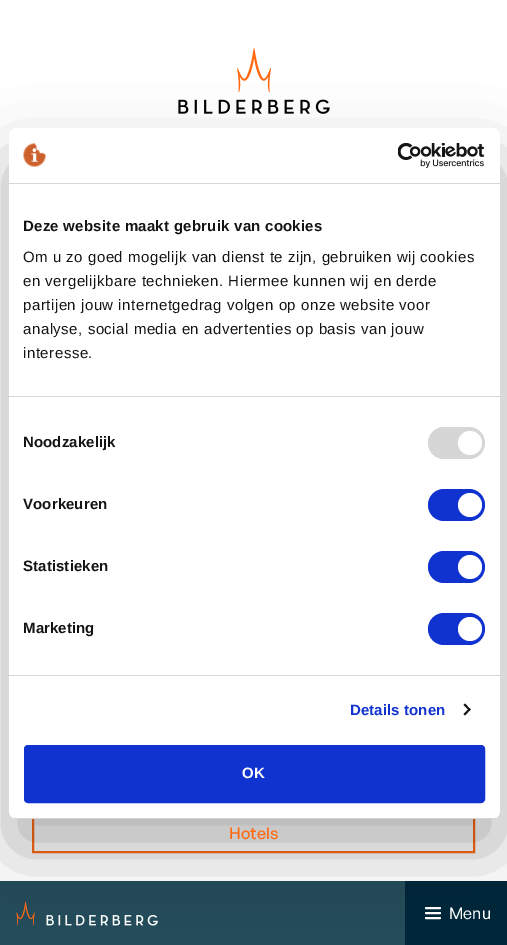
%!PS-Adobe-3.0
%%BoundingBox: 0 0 507 945
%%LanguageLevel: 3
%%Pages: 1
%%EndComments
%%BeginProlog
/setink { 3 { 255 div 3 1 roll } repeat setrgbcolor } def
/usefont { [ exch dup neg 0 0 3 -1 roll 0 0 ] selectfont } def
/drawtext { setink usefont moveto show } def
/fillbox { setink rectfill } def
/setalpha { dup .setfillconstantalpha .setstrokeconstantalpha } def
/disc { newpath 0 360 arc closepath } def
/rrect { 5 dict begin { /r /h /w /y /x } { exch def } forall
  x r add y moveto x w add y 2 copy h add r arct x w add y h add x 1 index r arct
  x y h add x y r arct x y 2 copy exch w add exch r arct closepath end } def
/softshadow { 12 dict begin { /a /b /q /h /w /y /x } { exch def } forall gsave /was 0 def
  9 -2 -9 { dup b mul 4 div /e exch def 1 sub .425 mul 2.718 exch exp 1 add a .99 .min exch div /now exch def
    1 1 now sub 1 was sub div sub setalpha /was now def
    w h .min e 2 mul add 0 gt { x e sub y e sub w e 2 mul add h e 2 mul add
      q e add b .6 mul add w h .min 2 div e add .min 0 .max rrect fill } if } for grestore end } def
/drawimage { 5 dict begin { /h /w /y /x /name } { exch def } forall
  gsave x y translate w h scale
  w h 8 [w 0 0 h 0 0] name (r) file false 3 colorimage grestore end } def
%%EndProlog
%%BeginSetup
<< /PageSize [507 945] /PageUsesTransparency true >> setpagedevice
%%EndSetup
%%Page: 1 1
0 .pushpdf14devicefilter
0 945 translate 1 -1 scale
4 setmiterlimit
0 0 507 945 255 255 255 fillbox
255 106 19 setink
2 setlinewidth
33 814 441 38 rectstroke
(assets/img3.rgb) 178 48 152 66 drawimage
0 881 405 64 36 76 90 fillbox
(assets/img4.rgb) 16 901 142 25 drawimage
405 881 102 64 0 38 58 fillbox
255 255 255 setink
1 setlinecap
1 setlinejoin
426 918 moveto 440 918 lineto 426 913 moveto 440 913 lineto 426 908 moveto 440 908 lineto stroke
0 0 0 setink
9 160 491 691 8 34 0.3 softshadow
255 255 255 setink
9 128 491 691 8 rrect fill
9 183 491 1 214 214 214 fillbox
(assets/img1.rgb) 23 143 23 24 drawimage
(assets/img2.rgb) 398 143 87 25 drawimage
9 396 491 1 214 214 214 fillbox
/LiberationSans-Bold 15 usefont
20 20 20 setink
23 231 moveto 0.25 0 (Deze website maakt gebruik van cookies) ashow
/LiberationSans-Regular 15 usefont
23 262 moveto 0.5 0 (Om u zo goed mogelijk van dienst te zijn, gebruiken wij cookies) ashow
23 286 moveto 0.5 0 (en vergelijkbare technieken. Hiermee kunnen wij en derde) ashow
23 310 moveto 0.5 0 (partijen jouw internetgedrag volgen op onze website voor) ashow
23 334 moveto 0.5 0 (analyse, social media en advertenties op basis van jouw) ashow
23 358 moveto 0.5 0 (interesse.) ashow
9 675 491 1 214 214 214 fillbox
/LiberationSans-Bold 15 usefont
20 20 20 setink
23 447 moveto 0.1 0 (Noodzakelijk) ashow
214 214 214 setink
428 427 57 32 16 rrect fill
255 255 255 setink
470 443 12 disc fill
20 20 20 setink
23 509 moveto 0.1 0 (Voorkeuren) ashow
16 50 207 setink
428 489 57 32 16 rrect fill
255 255 255 setink
470 505 12 disc fill
20 20 20 setink
23 571 moveto 0.1 0 (Statistieken) ashow
16 50 207 setink
428 551 57 32 16 rrect fill
255 255 255 setink
470 567 12 disc fill
20 20 20 setink
23 633 moveto 0.1 0 (Marketing) ashow
16 50 207 setink
428 613 57 32 16 rrect fill
255 255 255 setink
470 629 12 disc fill
16 50 207 setink
350 715 moveto 0.1 0 (Details tonen) ashow
20 20 20 setink
465 703.5 moveto 470.5 709.5 lineto 469.5 711 lineto 463.5 705 lineto closepath fill
469.5 708 moveto 470.5 709.5 lineto 465 715.5 lineto 463.5 714 lineto closepath fill
gsave
9 128 491 691 8 rrect clip newpath
9 818 491 1 214 214 214 fillbox
grestore
16 50 207 setink
25 746 459 56 3 rrect gsave fill grestore
0 setlinecap
0 setlinejoin
stroke
(OK) 242 778 /LiberationSans-Bold 15 255 255 255 drawtext
(Hotels) 229 839 /GeneralSans-Medium 16 255 106 19 drawtext
(Menu) 449 919 /GeneralSans-Regular 16 255 255 255 drawtext
.poppdf14devicefilter showpage
%%EOF
